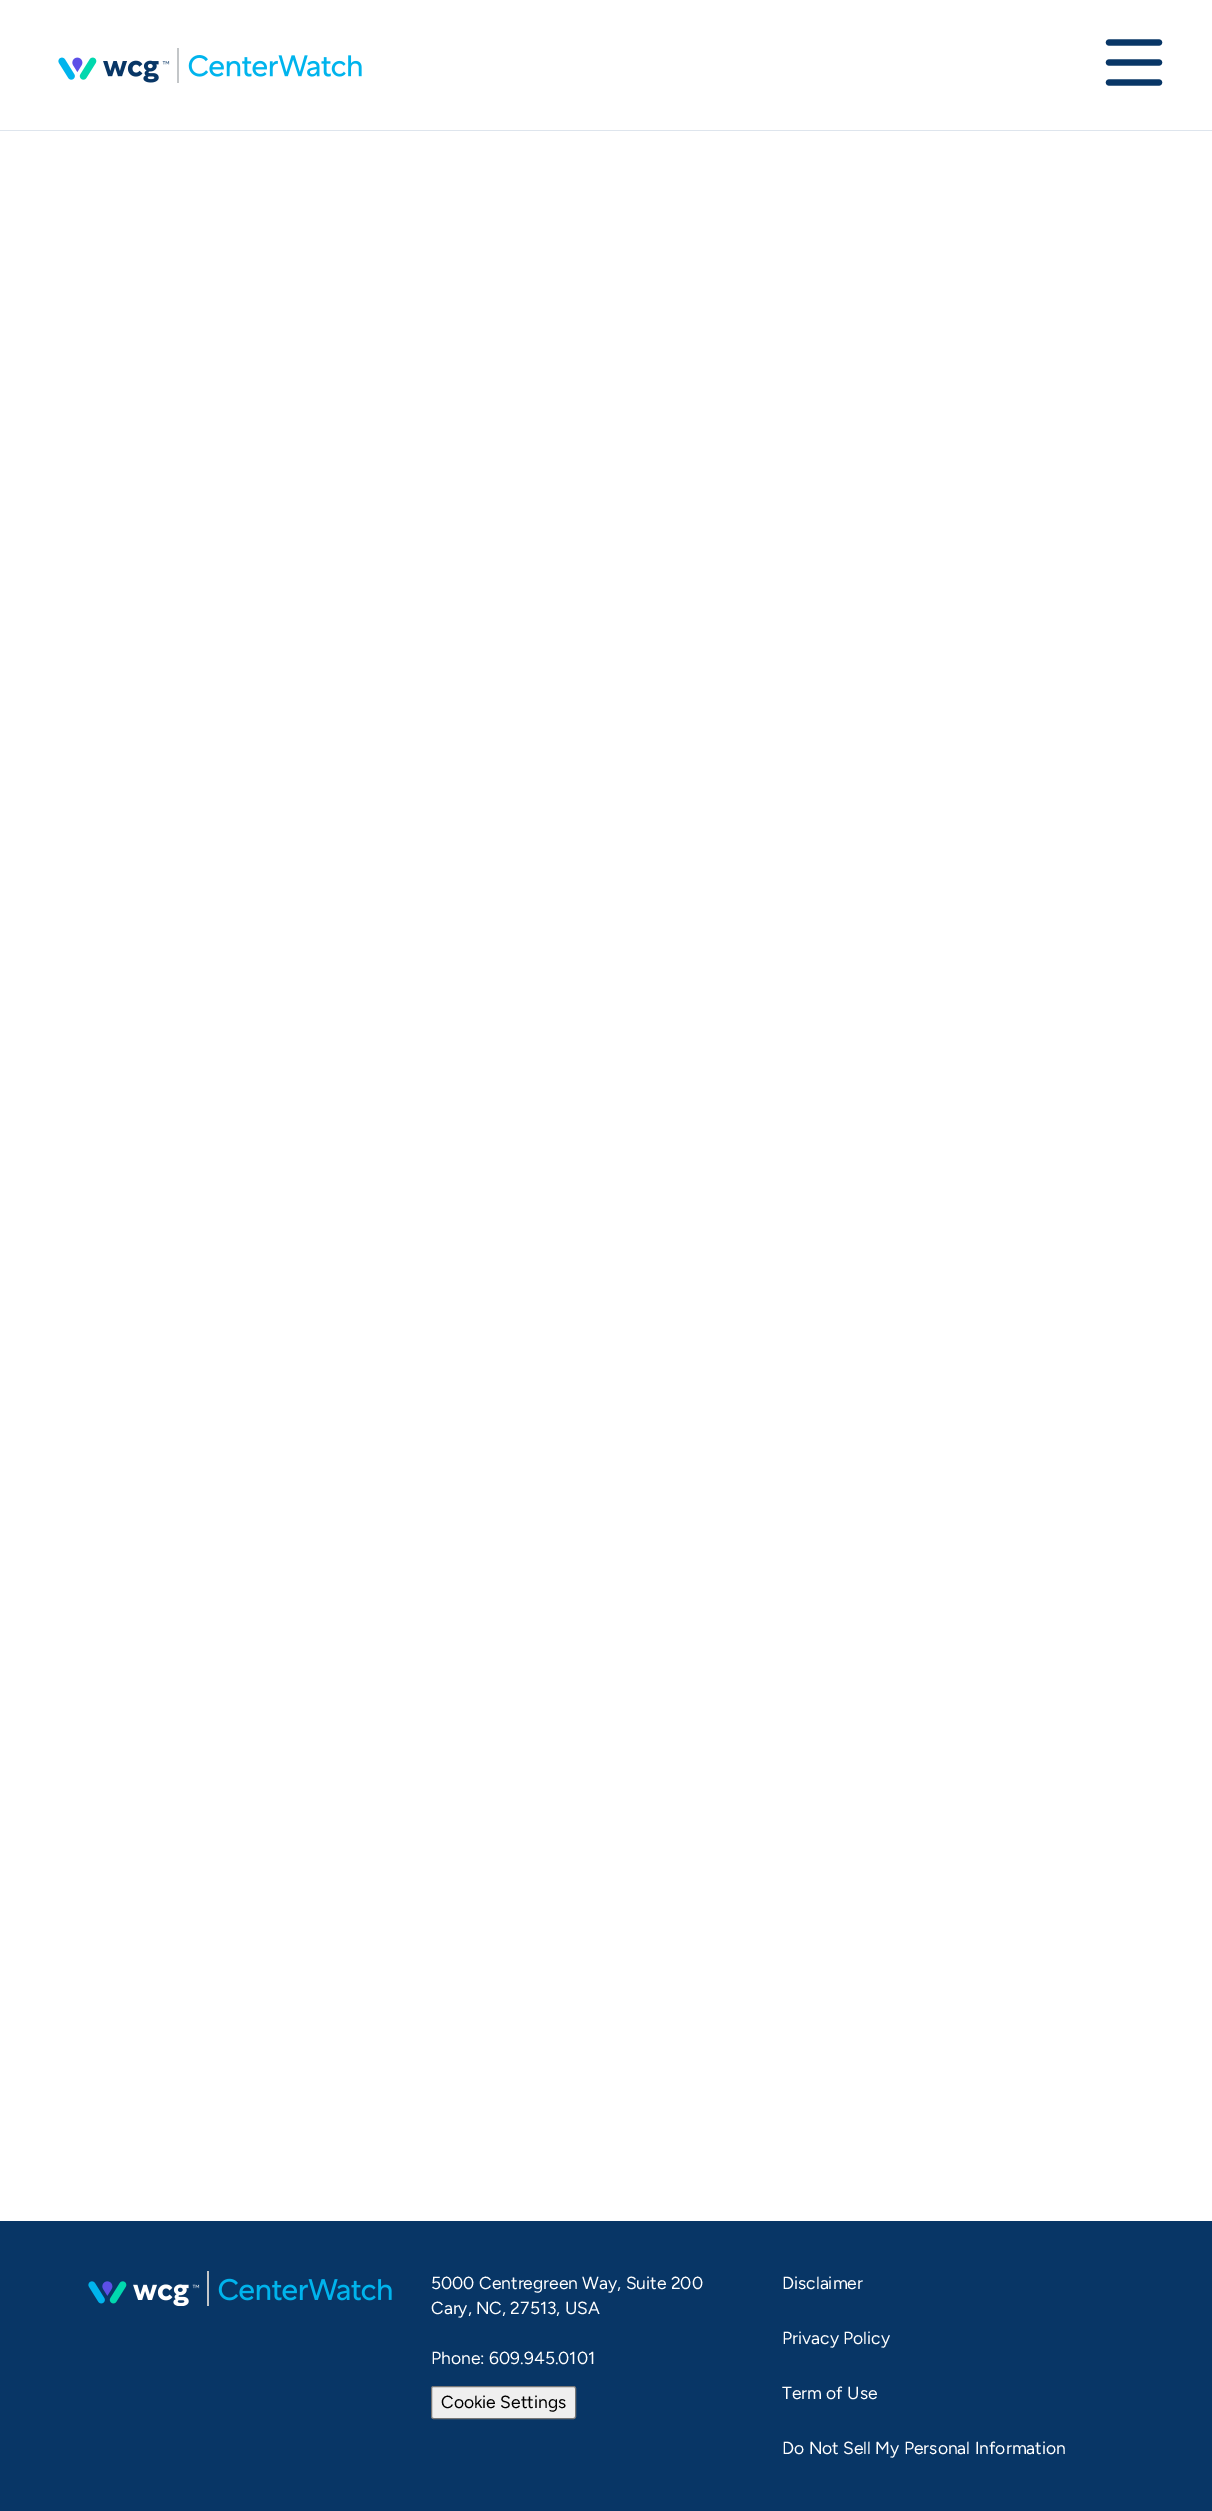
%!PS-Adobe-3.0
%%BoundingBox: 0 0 1212 2511
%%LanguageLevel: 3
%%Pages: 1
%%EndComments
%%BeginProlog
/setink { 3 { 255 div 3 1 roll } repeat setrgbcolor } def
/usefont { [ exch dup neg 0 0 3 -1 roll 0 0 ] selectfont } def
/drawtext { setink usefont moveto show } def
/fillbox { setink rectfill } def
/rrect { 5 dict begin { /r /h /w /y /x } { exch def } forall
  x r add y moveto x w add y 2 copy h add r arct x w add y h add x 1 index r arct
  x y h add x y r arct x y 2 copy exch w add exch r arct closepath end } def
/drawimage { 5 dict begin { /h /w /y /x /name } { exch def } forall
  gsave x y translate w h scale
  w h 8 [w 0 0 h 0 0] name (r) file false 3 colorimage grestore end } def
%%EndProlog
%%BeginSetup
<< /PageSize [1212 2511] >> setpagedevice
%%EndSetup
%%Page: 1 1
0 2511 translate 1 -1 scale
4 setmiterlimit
0 0 1212 2511 255 255 255 fillbox
0 130 1212 1 222 229 237 fillbox
(assets/img1.rgb) 58 48 304 35 drawimage
8 54 102 setink
6.2 setlinewidth
1 setlinecap
1109 42.5 moveto 1159 42.5 lineto 1109 62.5 moveto 1159 62.5 lineto 1109 82.5 moveto 1159 82.5 lineto stroke
0 2221 1212 290 8 54 102 fillbox
(assets/img2.rgb) 88 2271 304 35 drawimage
(5000 Centregreen Way, Suite 200) 431 2289 /Figtree-Regular 17.5 255 255 255 drawtext
(Cary, NC, 27513, USA) 431 2314 /Figtree-Regular 17.5 255 255 255 drawtext
(Phone: 609.945.0101) 431 2364 /Figtree-Regular 17.5 255 255 255 drawtext
239 239 239 setink
431.5 2386.5 144 32 2 rrect gsave fill grestore
118 118 118 setink
1 setlinewidth
0 setlinecap
stroke
(Cookie Settings) 441 2408 /Figtree-Regular 17.5 0 0 0 drawtext
(Disclaimer) 782 2289 /Figtree-Regular 17.5 255 255 255 drawtext
(Privacy Policy) 782 2344 /Figtree-Regular 17.5 255 255 255 drawtext
(Term of Use) 782 2399 /Figtree-Regular 17.5 255 255 255 drawtext
(Do Not Sell My Personal Information) 782 2454 /Figtree-Regular 17.5 255 255 255 drawtext
showpage
%%EOF
